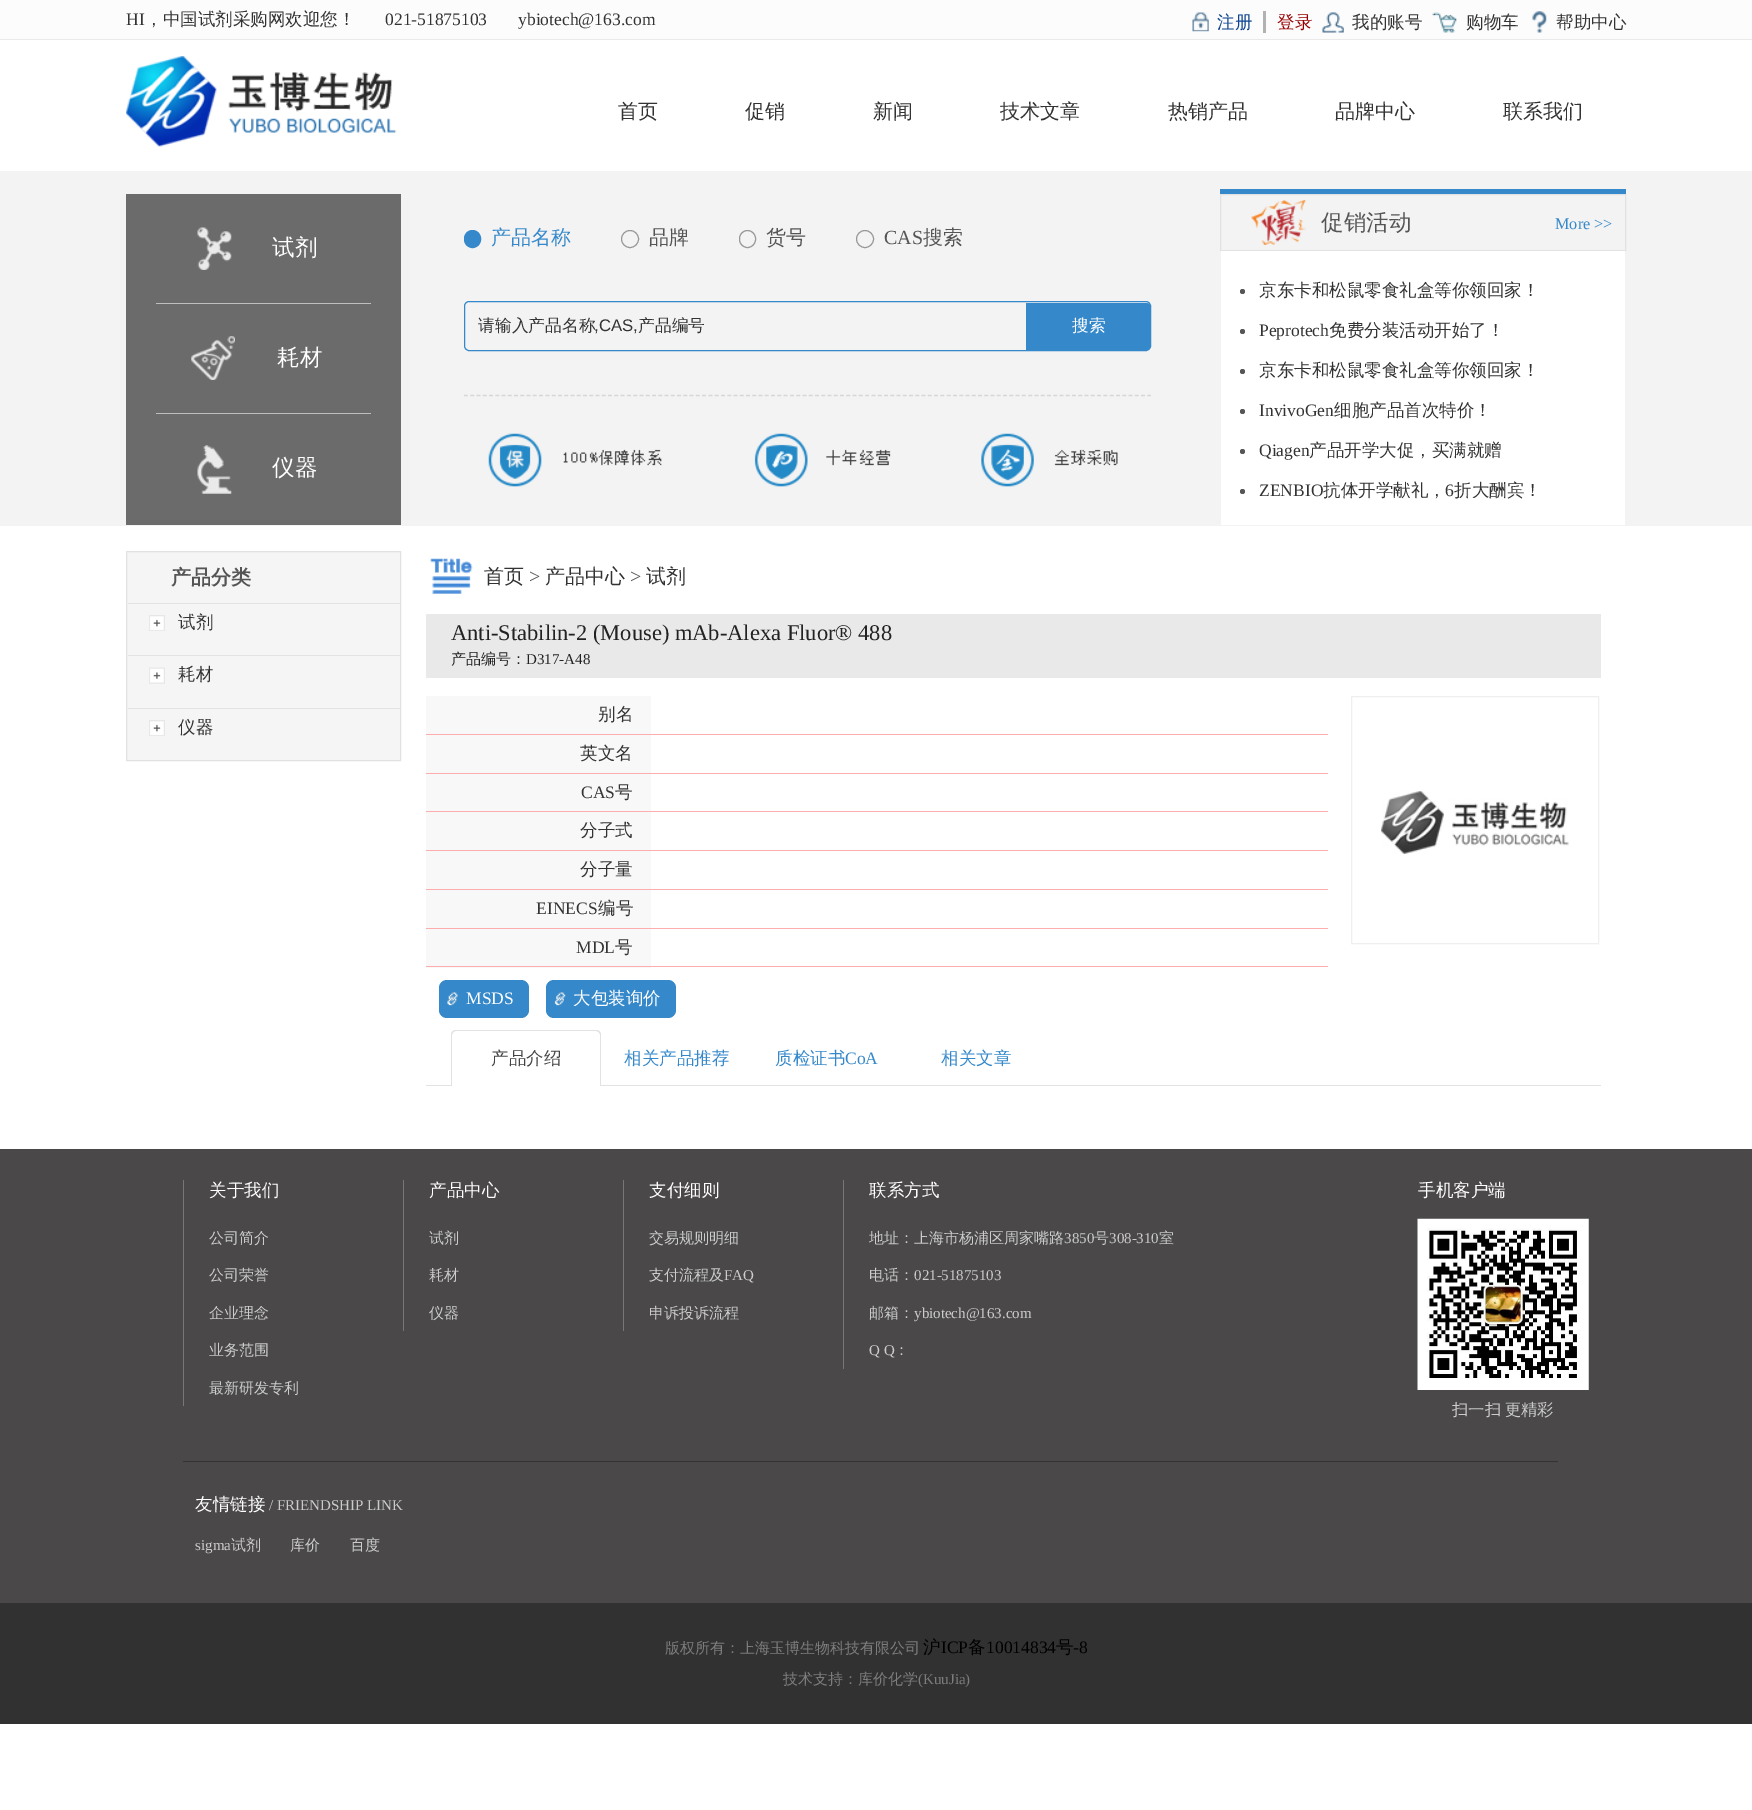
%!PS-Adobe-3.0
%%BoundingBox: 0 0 1752 1810
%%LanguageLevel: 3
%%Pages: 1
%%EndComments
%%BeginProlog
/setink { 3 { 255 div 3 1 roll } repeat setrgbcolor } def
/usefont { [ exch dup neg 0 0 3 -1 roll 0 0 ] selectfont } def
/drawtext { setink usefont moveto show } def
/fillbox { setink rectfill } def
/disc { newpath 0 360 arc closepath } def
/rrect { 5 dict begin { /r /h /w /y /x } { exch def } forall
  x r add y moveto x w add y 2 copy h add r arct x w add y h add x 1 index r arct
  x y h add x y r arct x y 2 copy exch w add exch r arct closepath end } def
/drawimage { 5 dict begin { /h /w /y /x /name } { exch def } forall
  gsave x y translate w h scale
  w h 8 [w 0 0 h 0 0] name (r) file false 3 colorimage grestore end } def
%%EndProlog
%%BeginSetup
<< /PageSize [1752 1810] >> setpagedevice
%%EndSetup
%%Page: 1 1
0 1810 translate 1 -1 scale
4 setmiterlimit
0 0 1752 1810 255 255 255 fillbox
0 0 1752 39 252 252 252 fillbox
0 39 1752 1 233 233 233 fillbox
(HI) 126 25 /LiberationSerif-Regular 17.5 51 51 51 drawtext
(，中国试剂采购网欢迎您！) 145 25 /WenQuanYiZenHei-Medium 17.5 51 51 51 drawtext
(021-51875103) 385 25 /LiberationSerif-Regular 17.5 51 51 51 drawtext
(ybiotech@163.com) 518 25 /LiberationSerif-Regular 17.5 51 51 51 drawtext
(assets/img1.rgb) 1192 12 17 20 drawimage
(注册) 1217 28 /WenQuanYiZenHei-Medium 17.5 13 69 144 drawtext
1263 11 3 22 178 178 178 fillbox
(登录) 1277 28 /WenQuanYiZenHei-Medium 17.5 151 0 0 drawtext
(assets/img2.rgb) 1322 12 22 21 drawimage
(我的账号) 1352 28 /WenQuanYiZenHei-Medium 17.5 51 51 51 drawtext
(assets/img3.rgb) 1432 12 25 21 drawimage
(购物车) 1466 28 /WenQuanYiZenHei-Medium 17.5 51 51 51 drawtext
(assets/img4.rgb) 1532 11 15 22 drawimage
(帮助中心) 1556 28 /WenQuanYiZenHei-Medium 17.5 51 51 51 drawtext
(assets/img5.rgb) 126 56 271 91 drawimage
(首页) 618 118 /WenQuanYiZenHei-Medium 20 51 51 51 drawtext
(促销) 745 118 /WenQuanYiZenHei-Medium 20 51 51 51 drawtext
(新闻) 873 118 /WenQuanYiZenHei-Medium 20 51 51 51 drawtext
(技术文章) 1000 118 /WenQuanYiZenHei-Medium 20 51 51 51 drawtext
(热销产品) 1168 118 /WenQuanYiZenHei-Medium 20 51 51 51 drawtext
(品牌中心) 1335 118 /WenQuanYiZenHei-Medium 20 51 51 51 drawtext
(联系我们) 1503 118 /WenQuanYiZenHei-Medium 20 51 51 51 drawtext
0 171 1752 355 243 243 243 fillbox
126 194 275 331 107 107 107 fillbox
(assets/img6.rgb) 197 227 35 43 drawimage
156 303 215 1 190 190 190 fillbox
(试剂) 272 255 /WenQuanYiZenHei-Medium 22.5 255 255 255 drawtext
(assets/img7.rgb) 191 336 44 44 drawimage
156 413 215 1 190 190 190 fillbox
(耗材) 277 365 /WenQuanYiZenHei-Medium 22.5 255 255 255 drawtext
(assets/img8.rgb) 197 445 35 49 drawimage
(仪器) 272 475 /WenQuanYiZenHei-Medium 22.5 255 255 255 drawtext
53 137 203 setink
464.5 230.5 16 17 8 rrect gsave fill grestore
stroke
(产品名称) 491 244 /WenQuanYiZenHei-Medium 20 53 137 203 drawtext
152 152 152 setink
630 239 8.5 disc stroke
(品牌) 649 244 /WenQuanYiZenHei-Medium 20 85 85 85 drawtext
152 152 152 setink
739.5 230.5 16 17 8 rrect stroke
(货号) 766 244 /WenQuanYiZenHei-Medium 20 85 85 85 drawtext
152 152 152 setink
865 239 8.5 disc stroke
(CAS) 884 244 /LiberationSerif-Regular 20 85 85 85 drawtext
(搜索) 923 244 /WenQuanYiZenHei-Medium 20 85 85 85 drawtext
53 137 203 setink
464.5 301.5 686 49 4.5 rrect stroke
(请输入产品名称) 478 331 /WenQuanYiZenHei-Medium 16.75 51 51 51 drawtext
(,CAS,) 594 331 /LiberationSans-Regular 16.75 51 51 51 drawtext
(产品编号) 638 331 /WenQuanYiZenHei-Medium 16.75 51 51 51 drawtext
53 137 203 setink
1026 303 moveto 1146 303 lineto 1149 303 1151 305 1151 308 curveto 1151 345 lineto 1151 348 1149 350 1146 350 curveto 1026 350 lineto closepath fill
(搜索) 1072 331 /WenQuanYiZenHei-Medium 16.75 255 255 255 drawtext
215 215 215 setink
1.2 setlinewidth
[3.75 2.52] 0 setdash
464 395.5 moveto 1151 395.5 lineto stroke
(assets/img9.rgb) 488 433 630 54 drawimage
1220 189 406 5 53 137 203 fillbox
(assets/img10.rgb) 1251 200 56 45 drawimage
226 226 226 setink
1 setlinewidth
[] 0 setdash
1220.5 194.5 405 56 rectstroke
(促销活动) 1321 230 /WenQuanYiZenHei-Medium 22.5 85 85 85 drawtext
(More >>) 1555 229 /LiberationSerif-Regular 16.25 53 137 203 drawtext
1221 251 404 274 255 255 255 fillbox
85 85 85 setink
1242.5 291.5 2.5 disc fill
(京东卡和松鼠零食礼盒等你领回家！) 1259 296 /WenQuanYiZenHei-Medium 17.5 51 51 51 drawtext
85 85 85 setink
1242.5 331.5 2.5 disc fill
(Peprotech) 1259 336 /LiberationSerif-Regular 17.5 51 51 51 drawtext
(免费分装活动开始了！) 1329 336 /WenQuanYiZenHei-Medium 17.5 51 51 51 drawtext
85 85 85 setink
1242.5 371.5 2.5 disc fill
(京东卡和松鼠零食礼盒等你领回家！) 1259 376 /WenQuanYiZenHei-Medium 17.5 51 51 51 drawtext
85 85 85 setink
1242.5 411.5 2.5 disc fill
(InvivoGen) 1259 416 /LiberationSerif-Regular 17.5 51 51 51 drawtext
(细胞产品首次特价！) 1334 416 /WenQuanYiZenHei-Medium 17.5 51 51 51 drawtext
85 85 85 setink
1242.5 451.5 2.5 disc fill
(Qiagen) 1259 456 /LiberationSerif-Regular 17.5 51 51 51 drawtext
(产品开学大促，买满就赠) 1309 456 /WenQuanYiZenHei-Medium 17.5 51 51 51 drawtext
85 85 85 setink
1242.5 491.5 2.5 disc fill
(ZENBIO) 1259 496 /LiberationSerif-Regular 17.5 51 51 51 drawtext
(抗体开学献礼，) 1323 496 /WenQuanYiZenHei-Medium 17.5 51 51 51 drawtext
(6) 1445 496 /LiberationSerif-Regular 17.5 51 51 51 drawtext
(折大酬宾！) 1454 496 /WenQuanYiZenHei-Medium 17.5 51 51 51 drawtext
245 245 245 setink
126.5 551.5 moveto 400.5 551.5 lineto 400.5 760.5 lineto 126.5 760.5 lineto closepath gsave fill grestore
226 226 226 setink
stroke
128 603 272 1 226 226 226 fillbox
(产品分类) 171 584 /WenQuanYiZenHei-Bold 20 85 85 85 drawtext
(assets/img11.rgb) 149 615 16 16 drawimage
128 655 272 1 226 226 226 fillbox
(试剂) 178 628 /WenQuanYiZenHei-Medium 17.5 51 51 51 drawtext
(assets/img12.rgb) 149 667 16 17 drawimage
128 708 272 1 226 226 226 fillbox
(耗材) 178 680 /WenQuanYiZenHei-Medium 17.5 51 51 51 drawtext
(assets/img11.rgb) 149 720 16 16 drawimage
(仪器) 178 733 /WenQuanYiZenHei-Medium 17.5 51 51 51 drawtext
(assets/img13.rgb) 430 558 43 36 drawimage
(首页) 484 583 /WenQuanYiZenHei-Medium 20 51 51 51 drawtext
(>) 529 583 /LiberationSerif-Regular 20 85 85 85 drawtext
(产品中心) 545 583 /WenQuanYiZenHei-Medium 20 51 51 51 drawtext
(>) 630 583 /LiberationSerif-Regular 20 85 85 85 drawtext
(试剂) 646 583 /WenQuanYiZenHei-Medium 20 51 51 51 drawtext
426 614 1175 64 233 233 233 fillbox
(Anti-Stabilin-2 \(Mouse\) mAb-Alexa Fluor® 488) 451 640 /LiberationSerif-Regular 22.5 34 34 34 drawtext
(产品编号：) 451 664 /WenQuanYiZenHei-Medium 15 34 34 34 drawtext
(D317-A48) 526 664 /LiberationSerif-Regular 15 34 34 34 drawtext
426 696 225 38 248 248 248 fillbox
(别名) 598 720 /WenQuanYiZenHei-Medium 17.5 51 51 51 drawtext
426 734 902 1 254 173 175 fillbox
426 735 225 38 248 248 248 fillbox
(英文名) 580 759 /WenQuanYiZenHei-Medium 17.5 51 51 51 drawtext
426 773 902 1 254 173 175 fillbox
426 774 225 76 248 248 248 fillbox
(CAS) 581 798 /LiberationSerif-Regular 17.5 51 51 51 drawtext
(号) 615 798 /WenQuanYiZenHei-Medium 17.5 51 51 51 drawtext
426 811 902 1 254 173 175 fillbox
(分子式) 580 836 /WenQuanYiZenHei-Medium 17.5 51 51 51 drawtext
426 850 902 1 254 173 175 fillbox
426 851 225 38 248 248 248 fillbox
(分子量) 580 875 /WenQuanYiZenHei-Medium 17.5 51 51 51 drawtext
426 889 902 1 254 173 175 fillbox
426 890 225 38 248 248 248 fillbox
(EINECS) 536 914 /LiberationSerif-Regular 17.5 51 51 51 drawtext
(编号) 598 914 /WenQuanYiZenHei-Medium 17.5 51 51 51 drawtext
426 928 902 1 254 173 175 fillbox
426 929 225 39 248 248 248 fillbox
(MDL) 576 953 /LiberationSerif-Regular 17.5 51 51 51 drawtext
(号) 615 953 /WenQuanYiZenHei-Medium 17.5 51 51 51 drawtext
426 966 902 1 254 173 175 fillbox
53 137 203 setink
439 980 90 38 8 rrect fill
(assets/img14.rgb) 447 992 11 14 drawimage
(MSDS) 466 1004 /LiberationSerif-Regular 17.5 255 255 255 drawtext
53 137 203 setink
546 980 130 38 8 rrect fill
(assets/img15.rgb) 554 992 12 14 drawimage
(大包装询价) 573 1004 /WenQuanYiZenHei-Medium 17.5 255 255 255 drawtext
239 239 239 setink
1351.5 696.5 247 247 rectstroke
(assets/img16.rgb) 1381 791 188 63 drawimage
426 1085 1175 1 226 226 226 fillbox
255 255 255 setink
456 1030 moveto 596 1030 lineto 599 1030 601 1032 601 1035 curveto 601 1086 lineto 451 1086 lineto 451 1035 lineto 451 1032 453 1030 456 1030 curveto closepath fill
226 226 226 setink
456 1030 moveto 596 1030 lineto 599 1030 601 1032 601 1035 curveto 601 1086 lineto 451 1086 lineto 451 1035 lineto 451 1032 453 1030 456 1030 curveto closepath 456 1031 moveto 596 1031 lineto 598 1031 600 1033 600 1035 curveto 600 1086 lineto 452 1086 lineto 452 1035 lineto 452 1033 454 1031 456 1031 curveto closepath eofill
(产品介绍) 491 1064 /WenQuanYiZenHei-Medium 17.5 68 68 68 drawtext
(相关产品推荐) 624 1064 /WenQuanYiZenHei-Medium 17.5 53 137 203 drawtext
(质检证书) 775 1064 /WenQuanYiZenHei-Medium 17.5 53 137 203 drawtext
(CoA) 845 1064 /LiberationSerif-Regular 17.5 53 137 203 drawtext
(相关文章) 941 1064 /WenQuanYiZenHei-Medium 17.5 53 137 203 drawtext
0 1149 1752 454 74 72 73 fillbox
183 1180 1 226 119 119 119 fillbox
(关于我们) 209 1196 /WenQuanYiZenHei-Medium 17.5 255 255 255 drawtext
(公司简介) 209 1243 /WenQuanYiZenHei-Medium 15 204 204 204 drawtext
(公司荣誉) 209 1280 /WenQuanYiZenHei-Medium 15 204 204 204 drawtext
(企业理念) 209 1318 /WenQuanYiZenHei-Medium 15 204 204 204 drawtext
(业务范围) 209 1355 /WenQuanYiZenHei-Medium 15 204 204 204 drawtext
(最新研发专利) 209 1393 /WenQuanYiZenHei-Medium 15 204 204 204 drawtext
403 1180 1 151 119 119 119 fillbox
(产品中心) 429 1196 /WenQuanYiZenHei-Medium 17.5 255 255 255 drawtext
(试剂) 429 1243 /WenQuanYiZenHei-Medium 15 204 204 204 drawtext
(耗材) 429 1280 /WenQuanYiZenHei-Medium 15 204 204 204 drawtext
(仪器) 429 1318 /WenQuanYiZenHei-Medium 15 204 204 204 drawtext
623 1180 1 151 119 119 119 fillbox
(支付细则) 649 1196 /WenQuanYiZenHei-Medium 17.5 255 255 255 drawtext
(交易规则明细) 649 1243 /WenQuanYiZenHei-Medium 15 204 204 204 drawtext
(支付流程及) 649 1280 /WenQuanYiZenHei-Medium 15 204 204 204 drawtext
(FAQ) 724 1280 /LiberationSerif-Regular 15 204 204 204 drawtext
(申诉投诉流程) 649 1318 /WenQuanYiZenHei-Medium 15 204 204 204 drawtext
843 1180 1 189 119 119 119 fillbox
(联系方式) 869 1196 /WenQuanYiZenHei-Medium 17.5 255 255 255 drawtext
(地址：上海市杨浦区周家嘴路) 869 1243 /WenQuanYiZenHei-Medium 15 204 204 204 drawtext
(3850) 1064 1243 /LiberationSerif-Regular 15 204 204 204 drawtext
(号) 1094 1243 /WenQuanYiZenHei-Medium 15 204 204 204 drawtext
(308-310) 1109 1243 /LiberationSerif-Regular 15 204 204 204 drawtext
(室) 1159 1243 /WenQuanYiZenHei-Medium 15 204 204 204 drawtext
(电话：) 869 1280 /WenQuanYiZenHei-Medium 15 204 204 204 drawtext
(021-51875103) 914 1280 /LiberationSerif-Regular 15 204 204 204 drawtext
(邮箱：) 869 1318 /WenQuanYiZenHei-Medium 15 204 204 204 drawtext
(ybiotech@163.com) 914 1318 /LiberationSerif-Regular 15 204 204 204 drawtext
(Q Q) 869 1355 /LiberationSerif-Regular 15 204 204 204 drawtext
(：) 894 1355 /WenQuanYiZenHei-Medium 15 204 204 204 drawtext
(手机客户端) 1418 1196 /WenQuanYiZenHei-Medium 17.5 255 255 255 drawtext
(assets/img17.rgb) 1417 1218 172 172 drawimage
/WenQuanYiZenHei-Medium 16.25 usefont
204 204 204 setink
1452 1415 moveto -1 0 32 (扫一扫 更精彩) widthshow
183 1461 1375 1 51 51 51 fillbox
(友情链接) 195 1510 /WenQuanYiZenHei-Medium 17.5 255 255 255 drawtext
(/ FRIENDSHIP LINK) 269 1510 /LiberationSerif-Regular 15 204 204 204 drawtext
(sigma) 195 1550 /LiberationSerif-Regular 15 204 204 204 drawtext
(试剂) 231 1550 /WenQuanYiZenHei-Medium 15 204 204 204 drawtext
(库价) 290 1550 /WenQuanYiZenHei-Medium 15 204 204 204 drawtext
(百度) 350 1550 /WenQuanYiZenHei-Medium 15 204 204 204 drawtext
0 1603 1752 121 49 49 49 fillbox
(版权所有：上海玉博生物科技有限公司) 665 1653 /WenQuanYiZenHei-Medium 15 125 125 125 drawtext
(沪) 923 1653 /WenQuanYiZenHei-Medium 17.5 0 0 0 drawtext
(ICP) 941 1653 /LiberationSerif-Regular 17.5 0 0 0 drawtext
(备) 968 1653 /WenQuanYiZenHei-Medium 17.5 0 0 0 drawtext
(10014834) 986 1653 /LiberationSerif-Regular 17.5 0 0 0 drawtext
(号) 1056 1653 /WenQuanYiZenHei-Medium 17.5 0 0 0 drawtext
(-8) 1073 1653 /LiberationSerif-Regular 17.5 0 0 0 drawtext
(技术支持：库价化学) 783 1684 /WenQuanYiZenHei-Medium 15 125 125 125 drawtext
(\(KuuJia\)) 918 1684 /LiberationSerif-Regular 15 125 125 125 drawtext
showpage
%%EOF
